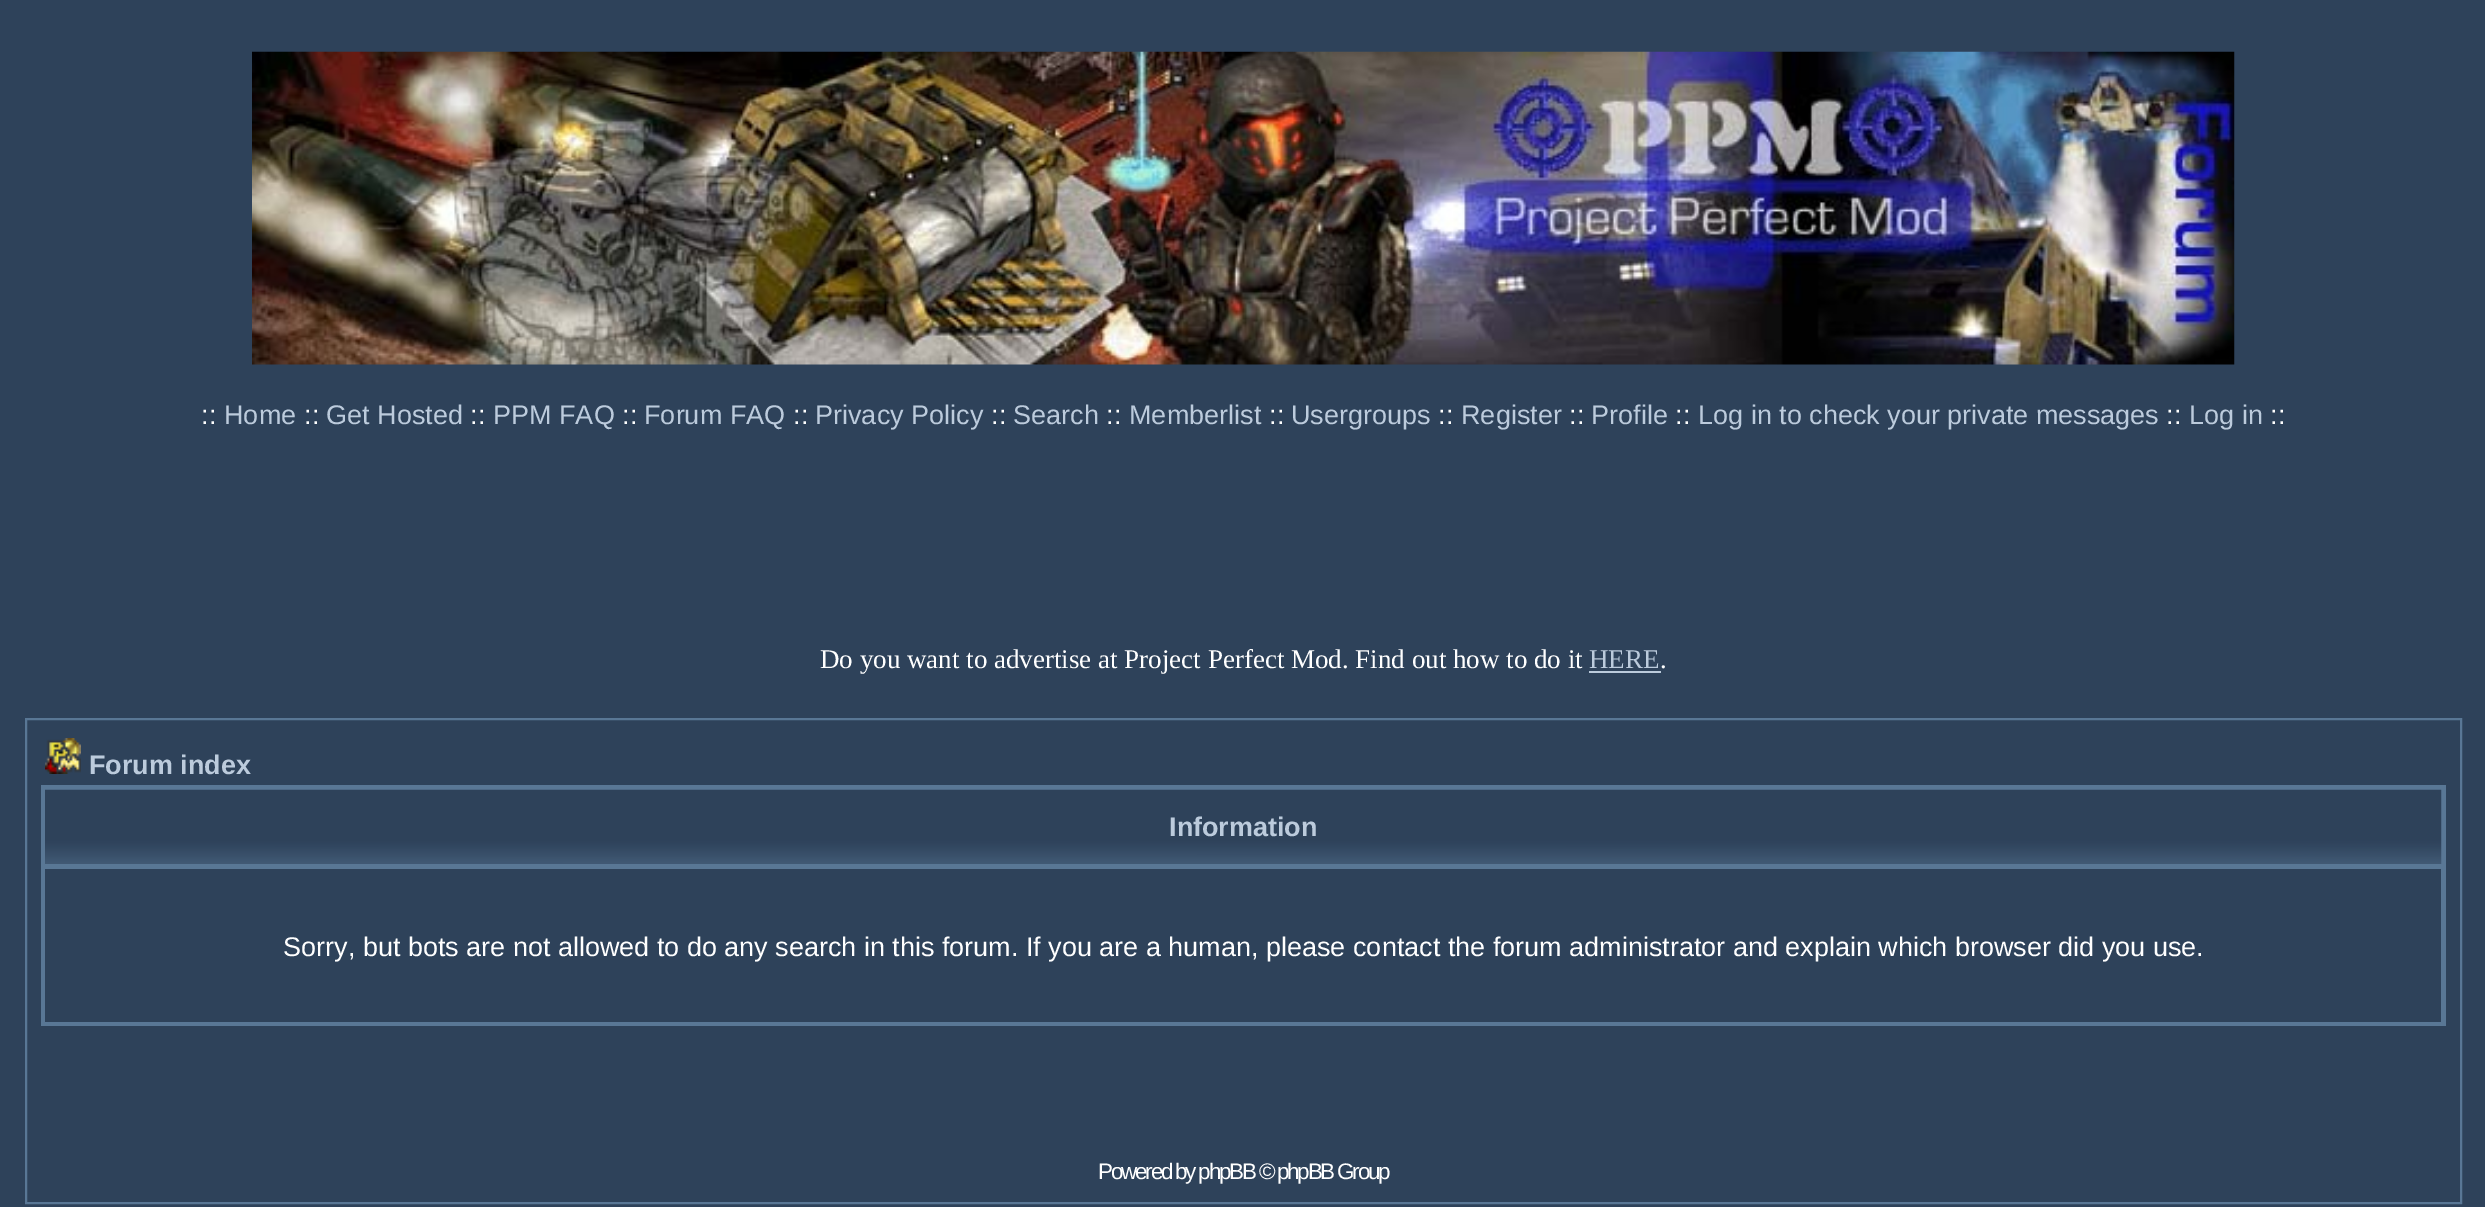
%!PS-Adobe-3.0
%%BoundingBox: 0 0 2485 1207
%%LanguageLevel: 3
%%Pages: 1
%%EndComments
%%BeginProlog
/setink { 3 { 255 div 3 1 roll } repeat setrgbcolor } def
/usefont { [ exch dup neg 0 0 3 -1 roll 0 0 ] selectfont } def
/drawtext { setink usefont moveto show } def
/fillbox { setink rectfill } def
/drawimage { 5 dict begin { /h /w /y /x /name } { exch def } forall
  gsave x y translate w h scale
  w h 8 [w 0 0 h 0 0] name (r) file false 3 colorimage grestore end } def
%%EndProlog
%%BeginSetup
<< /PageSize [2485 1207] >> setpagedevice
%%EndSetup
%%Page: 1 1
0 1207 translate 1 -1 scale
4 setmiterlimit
0 0 2485 1207 46 66 90 fillbox
(assets/img1.rgb) 252 51 1983 314 drawimage
(::) 201 424 /LiberationSans-Regular 27 255 255 255 drawtext
(Home) 224 424 /LiberationSans-Regular 27 188 203 220 drawtext
(::) 304 424 /LiberationSans-Regular 27 255 255 255 drawtext
(Get Hosted) 326 424 /LiberationSans-Regular 27 188 203 220 drawtext
(::) 470 424 /LiberationSans-Regular 27 255 255 255 drawtext
(PPM FAQ) 493 424 /LiberationSans-Regular 27 188 203 220 drawtext
(::) 622 424 /LiberationSans-Regular 27 255 255 255 drawtext
(Forum FAQ) 644 424 /LiberationSans-Regular 27 188 203 220 drawtext
(::) 793 424 /LiberationSans-Regular 27 255 255 255 drawtext
(Privacy Policy) 815 424 /LiberationSans-Regular 27 188 203 220 drawtext
(::) 991 424 /LiberationSans-Regular 27 255 255 255 drawtext
(Search) 1013 424 /LiberationSans-Regular 27 188 203 220 drawtext
(::) 1106 424 /LiberationSans-Regular 27 255 255 255 drawtext
(Memberlist) 1129 424 /LiberationSans-Regular 27 188 203 220 drawtext
(::) 1269 424 /LiberationSans-Regular 27 255 255 255 drawtext
(Usergroups) 1291 424 /LiberationSans-Regular 27 188 203 220 drawtext
(::) 1438 424 /LiberationSans-Regular 27 255 255 255 drawtext
(Register) 1461 424 /LiberationSans-Regular 27 188 203 220 drawtext
(::) 1569 424 /LiberationSans-Regular 27 255 255 255 drawtext
(Profile) 1591 424 /LiberationSans-Regular 27 188 203 220 drawtext
(::) 1675 424 /LiberationSans-Regular 27 255 255 255 drawtext
(Log in to check your private messages) 1698 424 /LiberationSans-Regular 27 188 203 220 drawtext
(::) 2166 424 /LiberationSans-Regular 27 255 255 255 drawtext
(Log in) 2189 424 /LiberationSans-Regular 27 188 203 220 drawtext
(::) 2270 424 /LiberationSans-Regular 27 255 255 255 drawtext
(Do you want to advertise at Project Perfect Mod. Find out how to do it) 820 668 /LiberationSerif-Regular 27 255 255 255 drawtext
(HERE) 1589 668 /LiberationSerif-Regular 27 188 203 220 drawtext
1589 671 72 2 188 203 220 fillbox
(.) 1660 668 /LiberationSerif-Regular 27 255 255 255 drawtext
89 119 149 setink
2 setlinewidth
26 719 2435 484 rectstroke
(assets/img2.rgb) 45 738 36 36 drawimage
(Forum index) 89 774 /LiberationSans-Bold 27 188 203 220 drawtext
41 785 2405 241 89 119 149 fillbox
(assets/img3.rgb) 45 789 2397 75 drawimage
(Information) 1169 836 /LiberationSans-Bold 27 188 203 220 drawtext
45 869 2396 153 46 66 90 fillbox
(Sorry, but bots are not allowed to do any search in this forum. If you are a human, please contact the forum administrator and explain which browser did you use.) 283 956 /LiberationSans-Regular 27 255 255 255 drawtext
/LiberationSans-Regular 22.5 usefont
1098 1179 moveto -2.25 0 (Powered by phpBB © phpBB Group) ashow
showpage
%%EOF
